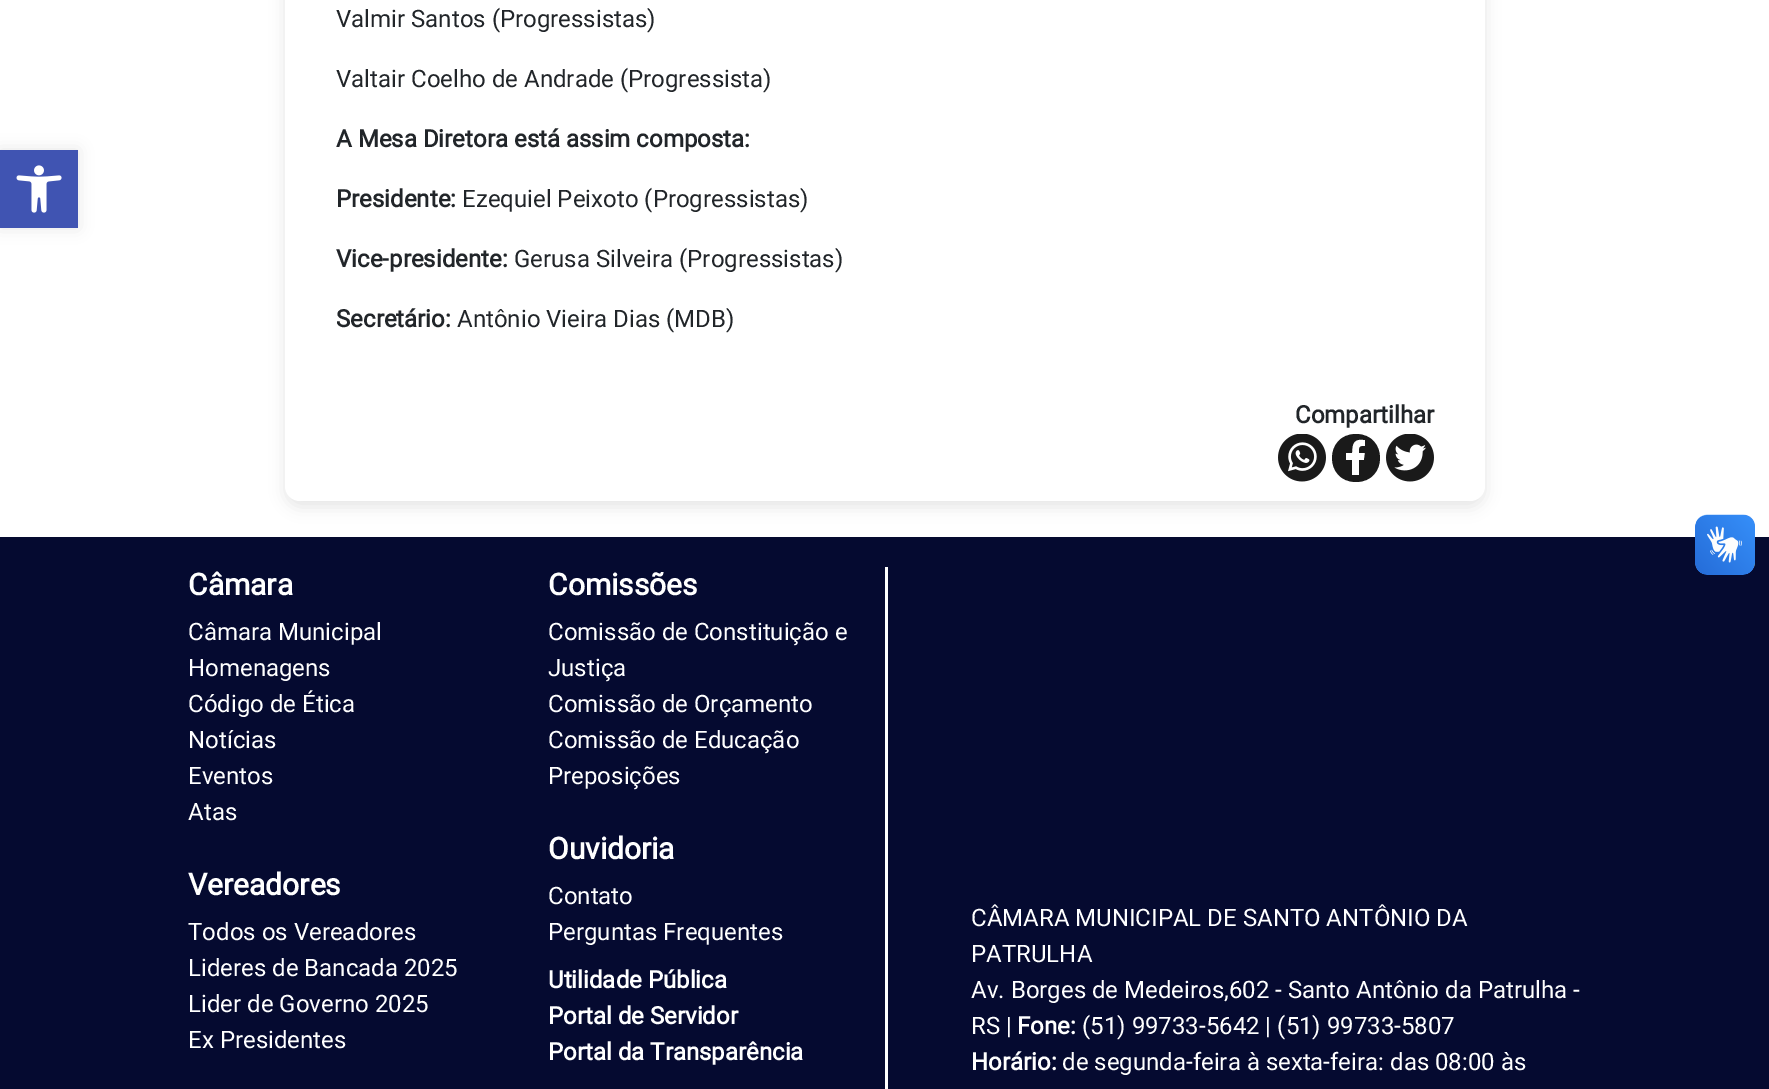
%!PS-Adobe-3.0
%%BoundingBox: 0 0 1769 1089
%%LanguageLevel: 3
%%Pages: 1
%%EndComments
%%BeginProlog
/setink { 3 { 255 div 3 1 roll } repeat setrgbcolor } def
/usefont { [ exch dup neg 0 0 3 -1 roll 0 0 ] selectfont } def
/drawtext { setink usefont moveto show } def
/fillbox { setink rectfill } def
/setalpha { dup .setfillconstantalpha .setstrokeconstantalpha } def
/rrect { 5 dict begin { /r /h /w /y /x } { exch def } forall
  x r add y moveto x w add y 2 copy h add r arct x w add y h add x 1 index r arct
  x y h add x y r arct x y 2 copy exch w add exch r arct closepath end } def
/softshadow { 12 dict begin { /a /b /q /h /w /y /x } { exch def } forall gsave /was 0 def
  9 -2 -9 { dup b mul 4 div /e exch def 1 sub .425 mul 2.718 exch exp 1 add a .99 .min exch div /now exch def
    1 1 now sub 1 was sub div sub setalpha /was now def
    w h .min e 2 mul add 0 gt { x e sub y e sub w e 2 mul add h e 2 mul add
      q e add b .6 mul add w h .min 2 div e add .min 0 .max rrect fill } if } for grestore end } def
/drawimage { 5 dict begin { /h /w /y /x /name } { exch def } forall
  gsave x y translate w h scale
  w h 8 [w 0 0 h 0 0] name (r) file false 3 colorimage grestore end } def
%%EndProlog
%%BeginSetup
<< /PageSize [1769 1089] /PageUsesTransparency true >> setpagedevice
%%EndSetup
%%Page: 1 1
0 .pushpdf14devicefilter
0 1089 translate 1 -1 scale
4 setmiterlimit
0 0 1769 1089 255 255 255 fillbox
0 0 0 setink
0 150 78 78 0 7.5 0.1 softshadow
0 150 78 78 64 84 178 fillbox
(assets/img1.rgb) 16 165 46 48 drawimage
0 0 0 setink
285 -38 1200 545 15 7.5 0.1 softshadow
255 255 255 setink
285 -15 1200 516 15 rrect fill
(Valmir Santos \(Progressistas\)) 336 27 /Roboto-Regular 24 33 37 41 drawtext
(Valtair Coelho de Andrade \(Progressista\)) 336 87 /Roboto-Regular 24 33 37 41 drawtext
(A Mesa Diretora está assim composta:) 336 147 /Roboto-Bold 24 33 37 41 drawtext
(Presidente:) 336 207 /Roboto-Bold 24 33 37 41 drawtext
(Ezequiel Peixoto \(Progressistas\)) 462 207 /Roboto-Regular 24 33 37 41 drawtext
(Vice-presidente:) 336 267 /Roboto-Bold 24 33 37 41 drawtext
(Gerusa Silveira \(Progressistas\)) 514 267 /Roboto-Regular 24 33 37 41 drawtext
(Secretário:) 336 327 /Roboto-Bold 24 33 37 41 drawtext
(Antônio Vieira Dias \(MDB\)) 457 327 /Roboto-Regular 24 33 37 41 drawtext
(Compartilhar) 1295 423 /Roboto-Bold 24 33 37 41 drawtext
(assets/img2.rgb) 1278 434 48 48 drawimage
26 26 26 setink
1356 434 moveto 1324 434 1324 482 1356 482 curveto 1388 482 1388 434 1356 434 curveto closepath 1365 446 moveto 1359 446 1359 447 1359 453 curveto 1365 453 lineto 1364 460 lineto 1359 460 lineto 1359 475 lineto 1352 475 lineto 1352 460 lineto 1346 460 lineto 1346 453 lineto 1352 453 lineto 1352 443 1354 438 1365 440 curveto closepath fill
(assets/img3.rgb) 1386 434 48 48 drawimage
0 537 1769 552 5 10 48 fillbox
(assets/img4.rgb) 1695 514 60 61 drawimage
(assets/img5.rgb) 1695 515 60 60 drawimage
(Câmara) 188 595 /Roboto-Bold 30 255 255 255 drawtext
(Câmara Municipal) 188 640 /Roboto-Regular 24 255 255 255 drawtext
(Homenagens) 188 676 /Roboto-Regular 24 255 255 255 drawtext
(Código de Ética) 188 712 /Roboto-Regular 24 255 255 255 drawtext
(Notícias) 188 748 /Roboto-Regular 24 255 255 255 drawtext
(Eventos) 188 784 /Roboto-Regular 24 255 255 255 drawtext
(Atas) 188 820 /Roboto-Regular 24 255 255 255 drawtext
(Vereadores) 188 895 /Roboto-Bold 30 255 255 255 drawtext
(Todos os Vereadores) 188 940 /Roboto-Regular 24 255 255 255 drawtext
(Lideres de Bancada 2025) 188 976 /Roboto-Regular 24 255 255 255 drawtext
(Lider de Governo 2025) 188 1012 /Roboto-Regular 24 255 255 255 drawtext
(Ex Presidentes) 188 1048 /Roboto-Regular 24 255 255 255 drawtext
(Comissões) 548 595 /Roboto-Bold 30 255 255 255 drawtext
(Comissão de Constituição e) 548 640 /Roboto-Regular 24 255 255 255 drawtext
(Justiça) 548 676 /Roboto-Regular 24 255 255 255 drawtext
(Comissão de Orçamento) 548 712 /Roboto-Regular 24 255 255 255 drawtext
(Comissão de Educação) 548 748 /Roboto-Regular 24 255 255 255 drawtext
(Preposições) 548 784 /Roboto-Regular 24 255 255 255 drawtext
(Ouvidoria) 548 859 /Roboto-Bold 30 255 255 255 drawtext
(Contato) 548 904 /Roboto-Regular 24 255 255 255 drawtext
(Perguntas Frequentes) 548 940 /Roboto-Regular 24 255 255 255 drawtext
(Utilidade Pública) 548 988 /Roboto-Bold 24 255 255 255 drawtext
(Portal de Servidor) 548 1024 /Roboto-Bold 24 255 255 255 drawtext
(Portal da Transparência) 548 1060 /Roboto-Bold 24 255 255 255 drawtext
885 567 3 522 255 255 255 fillbox
(CÂMARA MUNICIPAL DE SANTO ANTÔNIO DA) 971 926 /Roboto-Regular 24 255 255 255 drawtext
(PATRULHA) 971 962 /Roboto-Regular 24 255 255 255 drawtext
(Av. Borges de Medeiros,602 - Santo Antônio da Patrulha -) 971 998 /Roboto-Regular 24 255 255 255 drawtext
(RS |) 971 1034 /Roboto-Regular 24 255 255 255 drawtext
(Fone:) 1017 1034 /Roboto-Bold 24 255 255 255 drawtext
(\(51\) 99733-5642 | \(51\) 99733-5807) 1082 1034 /Roboto-Regular 24 255 255 255 drawtext
(Horário:) 971 1070 /Roboto-Bold 24 255 255 255 drawtext
(de segunda-feira à sexta-feira: das 08:00 às) 1062 1070 /Roboto-Regular 24 255 255 255 drawtext
.poppdf14devicefilter showpage
%%EOF
